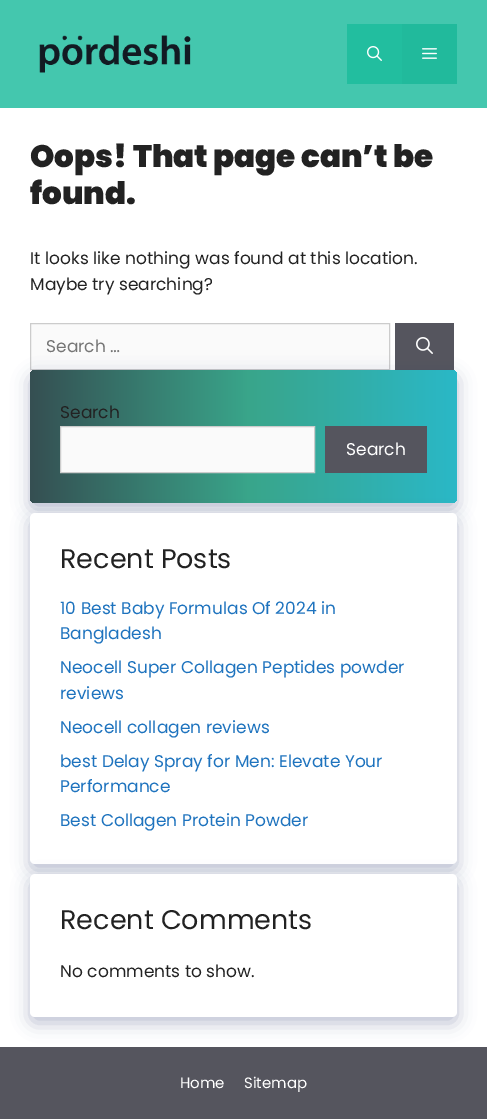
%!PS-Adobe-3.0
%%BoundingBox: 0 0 487 1119
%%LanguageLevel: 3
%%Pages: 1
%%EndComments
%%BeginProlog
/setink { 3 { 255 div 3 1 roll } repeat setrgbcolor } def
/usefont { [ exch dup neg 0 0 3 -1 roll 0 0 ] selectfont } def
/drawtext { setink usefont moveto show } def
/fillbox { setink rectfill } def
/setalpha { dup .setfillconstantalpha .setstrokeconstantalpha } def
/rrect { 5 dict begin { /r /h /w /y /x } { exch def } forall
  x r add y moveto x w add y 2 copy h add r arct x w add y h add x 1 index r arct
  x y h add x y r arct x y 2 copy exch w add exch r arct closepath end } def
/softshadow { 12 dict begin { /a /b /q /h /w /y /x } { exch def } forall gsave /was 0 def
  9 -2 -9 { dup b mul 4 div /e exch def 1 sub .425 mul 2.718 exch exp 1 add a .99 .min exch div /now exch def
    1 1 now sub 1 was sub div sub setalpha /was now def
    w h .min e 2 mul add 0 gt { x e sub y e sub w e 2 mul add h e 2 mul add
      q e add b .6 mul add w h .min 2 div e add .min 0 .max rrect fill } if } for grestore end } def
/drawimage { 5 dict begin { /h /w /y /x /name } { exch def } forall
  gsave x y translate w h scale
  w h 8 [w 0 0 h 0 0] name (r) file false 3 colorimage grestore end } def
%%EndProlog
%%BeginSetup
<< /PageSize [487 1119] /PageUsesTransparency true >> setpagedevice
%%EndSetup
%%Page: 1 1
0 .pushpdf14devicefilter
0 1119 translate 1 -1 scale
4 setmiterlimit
0 0 487 1119 255 255 255 fillbox
0 0 487 108 68 199 174 fillbox
(assets/img1.rgb) 39 35 152 38 drawimage
347 24 55 60 34 190 159 fillbox
(assets/img2.rgb) 367 46 15 15 drawimage
402 24 55 60 33 186 156 fillbox
(assets/img3.rgb) 422 48 15 11 drawimage
(Oops! That page can’t be) 30 167 /Poppins-Black 31 34 34 34 drawtext
(found.) 30 204 /Poppins-Black 31 34 34 34 drawtext
(It looks like nothing was found at this location.) 30 264 /Poppins-Regular 17 34 34 34 drawtext
(Maybe try searching?) 30 290 /Poppins-Regular 17 34 34 34 drawtext
250 250 250 setink
30.5 323.5 moveto 389.5 323.5 lineto 389.5 369.5 lineto 30.5 369.5 lineto closepath gsave fill grestore
204 204 204 setink
stroke
(Search …) 46 352 /Poppins-Regular 17 117 117 117 drawtext
395 323 59 47 85 85 94 fillbox
23 43 99 setink
30 376 427 133 5 9 0.3 softshadow
(assets/img4.rgb) 416 337 17 17 drawimage
gsave 30 370 427 133 5 rrect clip newpath
<< /ShadingType 2 /ColorSpace /DeviceRGB /Coords [30 437 457 437] /Extend [true true] /Function << /FunctionType 3 /Domain [0 1] /Functions [<< /FunctionType 2 /Domain [0 1] /C0 [0.208 0.31 0.322] /C1 [0.224 0.647 0.541] /N 1 >> << /FunctionType 2 /Domain [0 1] /C0 [0.224 0.647 0.541] /C1 [0.165 0.722 0.78] /N 1 >>] /Bounds [0.51] /Encode [0 1 0 1] >> >> shfill grestore
(Search) 60 418 /Poppins-Regular 17 34 34 34 drawtext
250 250 250 setink
60.5 426.5 moveto 314.5 426.5 lineto 314.5 472.5 lineto 60.5 472.5 lineto closepath gsave fill grestore
204 204 204 setink
stroke
325 426 102 47 85 85 94 fillbox
(Search) 346 455 /Poppins-Regular 17 255 255 255 drawtext
23 43 99 setink
30 519 427 351 5 9 0.3 softshadow
255 255 255 setink
30 513 427 351 5 rrect fill
(Recent Posts) 60 568 /Poppins-Regular 27 34 34 34 drawtext
(10 Best Baby Formulas Of 2024 in) 60 614 /Poppins-Regular 17 30 115 190 drawtext
(Bangladesh) 60 639 /Poppins-Regular 17 30 115 190 drawtext
(Neocell Super Collagen Peptides powder) 60 673 /Poppins-Regular 17 30 115 190 drawtext
(reviews) 60 699 /Poppins-Regular 17 30 115 190 drawtext
(Neocell collagen reviews) 60 733 /Poppins-Regular 17 30 115 190 drawtext
(best Delay Spray for Men: Elevate Your) 60 767 /Poppins-Regular 17 30 115 190 drawtext
(Performance) 60 792 /Poppins-Regular 17 30 115 190 drawtext
(Best Collagen Protein Powder) 60 826 /Poppins-Regular 17 30 115 190 drawtext
0 1047 487 72 85 85 94 fillbox
23 43 99 setink
30 880 427 143 5 9 0.3 softshadow
255 255 255 setink
30 874 427 143 5 rrect fill
(Recent Comments) 60 929 /Poppins-Regular 27 34 34 34 drawtext
(No comments to show.) 60 977 /Poppins-Regular 17 34 34 34 drawtext
(Home) 180 1088 /Poppins-Regular 15 255 255 255 drawtext
(Sitemap) 244 1088 /Poppins-Regular 15 255 255 255 drawtext
.poppdf14devicefilter showpage
%%EOF
